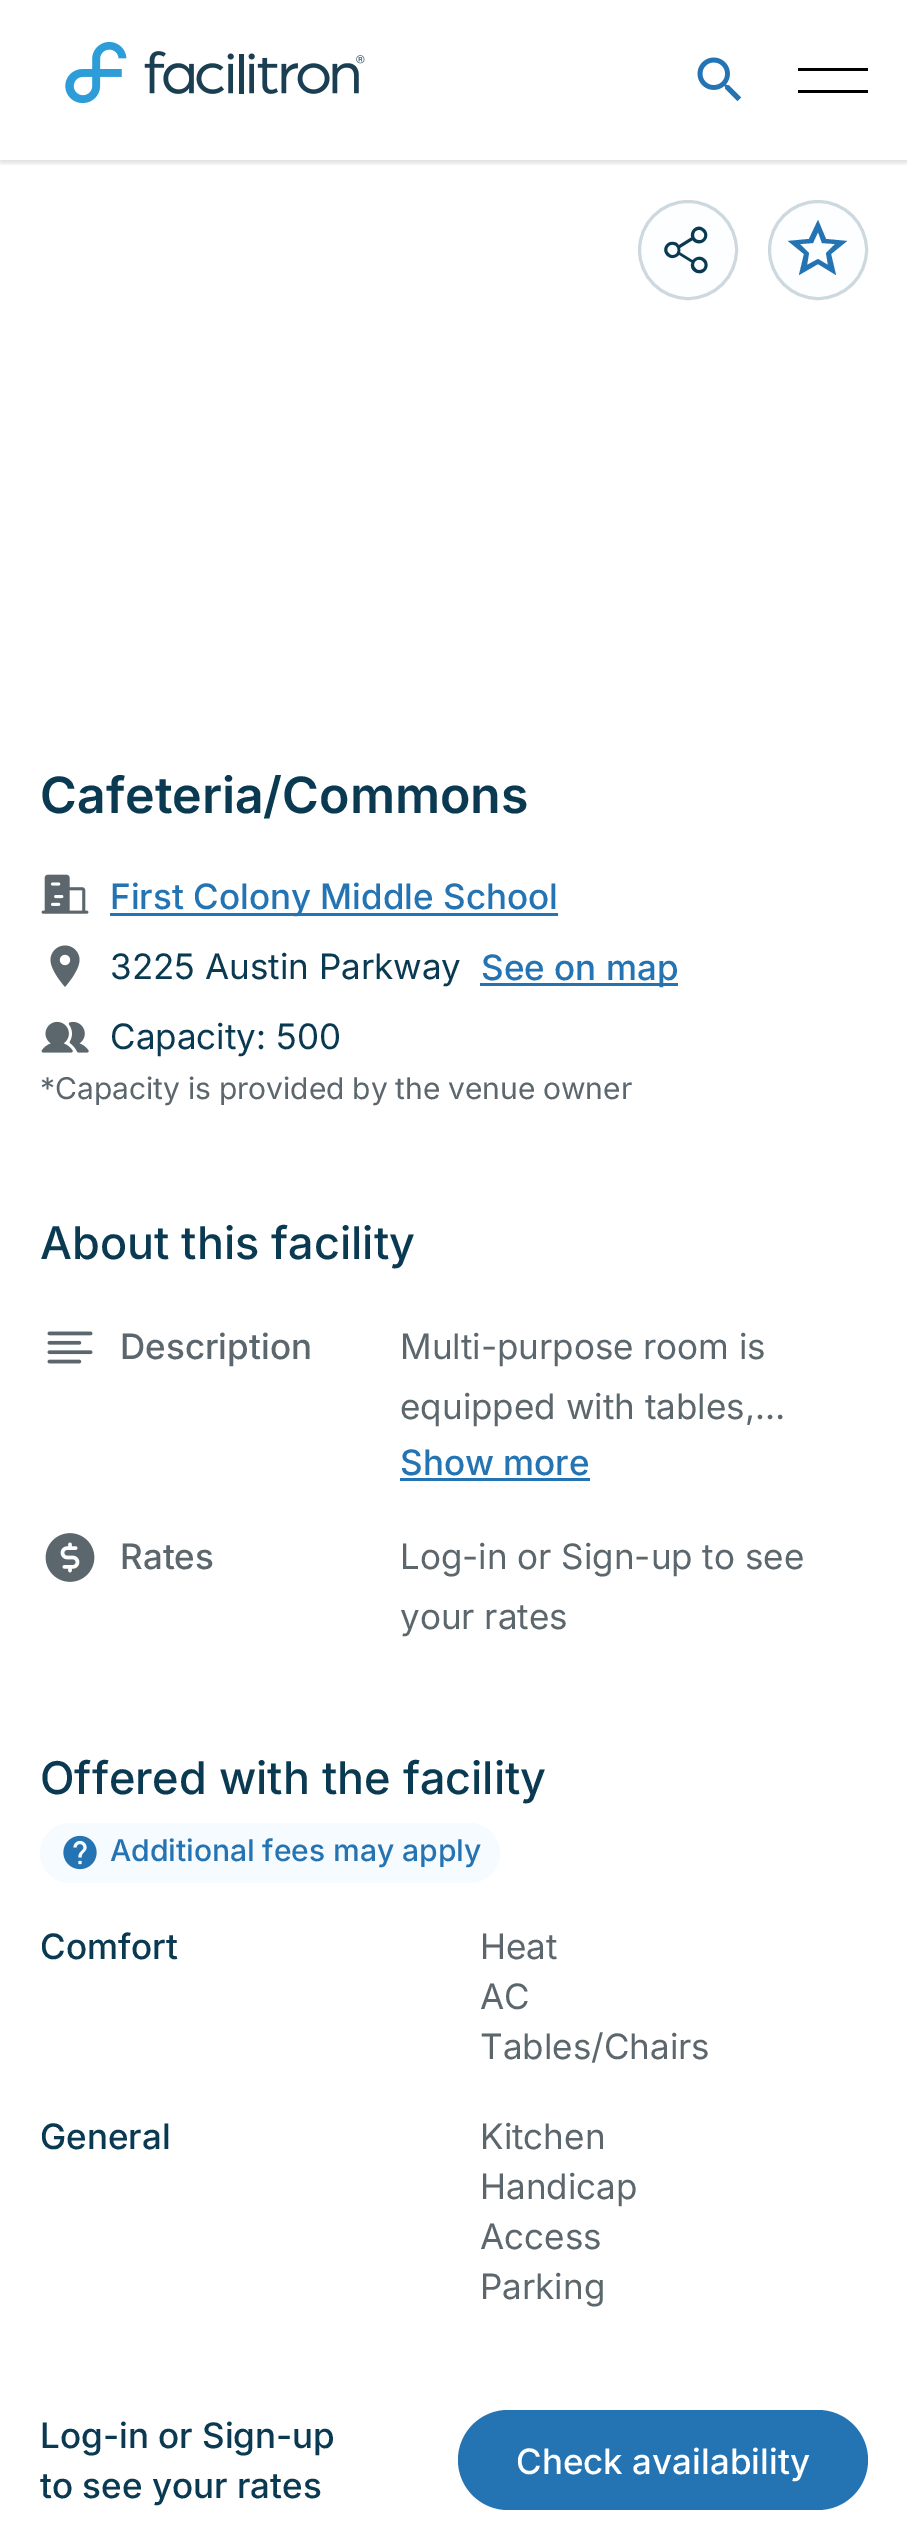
%!PS-Adobe-3.0
%%BoundingBox: 0 0 907 2548
%%LanguageLevel: 3
%%Pages: 1
%%EndComments
%%BeginProlog
/setink { 3 { 255 div 3 1 roll } repeat setrgbcolor } def
/usefont { [ exch dup neg 0 0 3 -1 roll 0 0 ] selectfont } def
/drawtext { setink usefont moveto show } def
/fillbox { setink rectfill } def
/setalpha { dup .setfillconstantalpha .setstrokeconstantalpha } def
/disc { newpath 0 360 arc closepath } def
/rrect { 5 dict begin { /r /h /w /y /x } { exch def } forall
  x r add y moveto x w add y 2 copy h add r arct x w add y h add x 1 index r arct
  x y h add x y r arct x y 2 copy exch w add exch r arct closepath end } def
/softshadow { 12 dict begin { /a /b /q /h /w /y /x } { exch def } forall gsave /was 0 def
  9 -2 -9 { dup b mul 4 div /e exch def 1 sub .425 mul 2.718 exch exp 1 add a .99 .min exch div /now exch def
    1 1 now sub 1 was sub div sub setalpha /was now def
    w h .min e 2 mul add 0 gt { x e sub y e sub w e 2 mul add h e 2 mul add
      q e add b .6 mul add w h .min 2 div e add .min 0 .max rrect fill } if } for grestore end } def
/drawimage { 5 dict begin { /h /w /y /x /name } { exch def } forall
  gsave x y translate w h scale
  w h 8 [w 0 0 h 0 0] name (r) file false 3 colorimage grestore end } def
%%EndProlog
%%BeginSetup
<< /PageSize [907 2548] /PageUsesTransparency true >> setpagedevice
%%EndSetup
%%Page: 1 1
0 .pushpdf14devicefilter
0 2548 translate 1 -1 scale
4 setmiterlimit
0 0 907 2548 255 255 255 fillbox
gsave
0 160 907 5 rectclip
0 0 0 setink
0 3 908 160 0 2.5 0.12 softshadow
grestore
(assets/img1.rgb) 65 41 300 63 drawimage
(assets/img2.rgb) 697 57 45 45 drawimage
798 68 70 3 0 0 0 fillbox
798 90 70 3 0 0 0 fillbox
252 254 255 setink
688 250 48.5 disc gsave fill grestore
206 217 223 setink
3 setlinewidth
stroke
(assets/img3.rgb) 664 226 44 48 drawimage
252 254 255 setink
818 250 48.5 disc gsave fill grestore
206 217 223 setink
stroke
36 115 179 setink
818 259 moveto 807 265 lineto 809 253 lineto 800 244 lineto 813 243 lineto 818 232 lineto 822 243 lineto 835 244 lineto 826 253 lineto 828 265 lineto closepath 847 241 moveto 826 239 lineto 818 220 lineto 809 239 lineto 788 241 lineto 804 254 lineto 799 275 lineto 818 264 lineto 836 275 lineto 831 254 lineto closepath fill
(Cafeteria/Commons) 40 813 /Inter-SemiBold 50 10 58 82 drawtext
(assets/img4.rgb) 41 874 48 40 drawimage
110 913 448 3 36 115 179 fillbox
(First Colony Middle School) 110 909 /Inter-Medium 35 36 115 179 drawtext
(assets/img5.rgb) 50 945 30 42 drawimage
(3225 Austin Parkway) 110 979 /Inter-Regular 35 10 58 82 drawtext
480 983 198 3 36 115 179 fillbox
(See on map) 481 980 /Inter-Medium 35 36 115 179 drawtext
(assets/img6.rgb) 41 1021 48 32 drawimage
(Capacity: 500) 110 1049 /Inter-Regular 35 10 58 82 drawtext
/Inter-Regular 30 usefont
92 103 109 setink
40 1099 moveto -0.75 0 32 (*Capacity is provided by the venue owner) widthshow
(About this facility) 40 1259 /Inter-Medium 45 10 58 82 drawtext
(assets/img7.rgb) 47 1331 46 33 drawimage
(Description) 120 1359 /Inter-Medium 35 92 103 109 drawtext
(Multi-purpose room is) 400 1359 /Inter-Regular 35 92 103 109 drawtext
(equipped with tables,…) 400 1419 /Inter-Regular 35 92 103 109 drawtext
(Show more) 400 1475 /Inter-Medium 35 36 115 179 drawtext
400 1478 190 3 36 115 179 fillbox
(assets/img8.rgb) 45 1533 50 49 drawimage
(Rates) 120 1569 /Inter-Medium 35 92 103 109 drawtext
(Log-in or Sign-up to see) 400 1569 /Inter-Regular 35 92 103 109 drawtext
(your rates) 400 1629 /Inter-Regular 35 92 103 109 drawtext
(Offered with the facility) 40 1794 /Inter-Medium 45 10 58 82 drawtext
245 251 255 setink
40 1823 460 60 30 rrect fill
(assets/img9.rgb) 63 1835 34 35 drawimage
(Additional fees may apply) 110 1861 /Inter-Medium 30 36 115 179 drawtext
(Comfort) 40 1959 /Inter-Medium 35 10 58 82 drawtext
(Heat) 480 1959 /Inter-Regular 35 92 103 109 drawtext
(AC) 480 2009 /Inter-Regular 35 92 103 109 drawtext
(Tables/Chairs) 480 2059 /Inter-Regular 35 92 103 109 drawtext
(General) 40 2149 /Inter-Medium 35 10 58 82 drawtext
(Kitchen) 480 2149 /Inter-Regular 35 92 103 109 drawtext
(Handicap) 480 2199 /Inter-Regular 35 92 103 109 drawtext
(Access) 480 2249 /Inter-Regular 35 92 103 109 drawtext
(Parking) 480 2299 /Inter-Regular 35 92 103 109 drawtext
(Log-in or Sign-up) 40 2448 /Inter-Medium 35 10 58 82 drawtext
(to see your rates) 40 2498 /Inter-Medium 35 10 58 82 drawtext
36 115 179 setink
458 2410 410 100 50 rrect fill
(Check availability) 516 2474 /Inter-Medium 35 255 255 255 drawtext
.poppdf14devicefilter showpage
%%EOF
